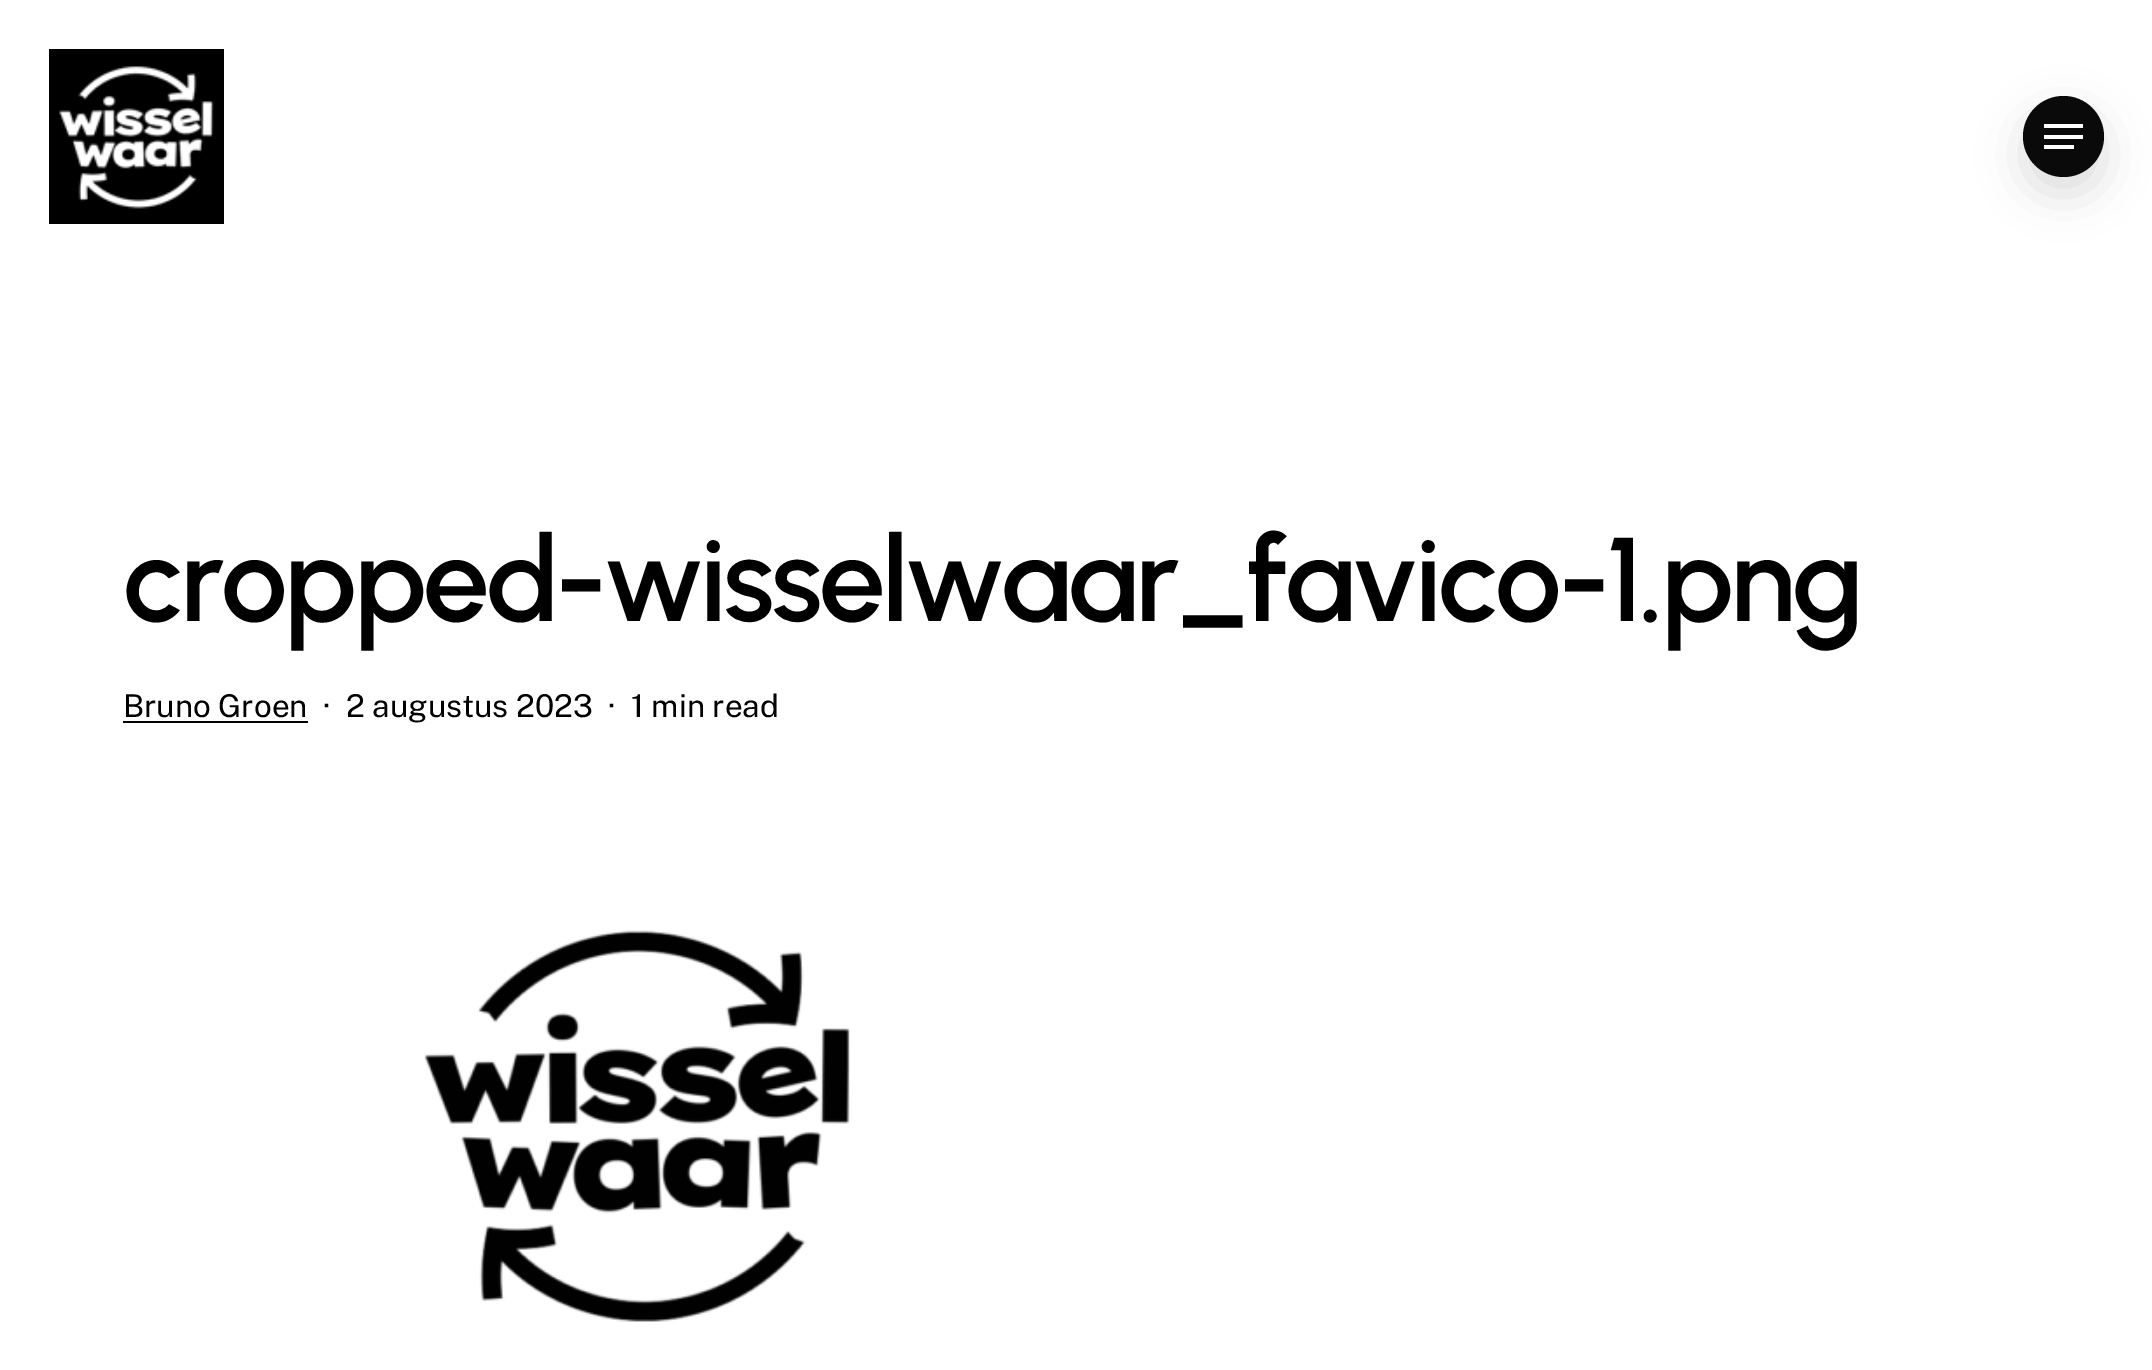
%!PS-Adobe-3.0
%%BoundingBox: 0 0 2152 1370
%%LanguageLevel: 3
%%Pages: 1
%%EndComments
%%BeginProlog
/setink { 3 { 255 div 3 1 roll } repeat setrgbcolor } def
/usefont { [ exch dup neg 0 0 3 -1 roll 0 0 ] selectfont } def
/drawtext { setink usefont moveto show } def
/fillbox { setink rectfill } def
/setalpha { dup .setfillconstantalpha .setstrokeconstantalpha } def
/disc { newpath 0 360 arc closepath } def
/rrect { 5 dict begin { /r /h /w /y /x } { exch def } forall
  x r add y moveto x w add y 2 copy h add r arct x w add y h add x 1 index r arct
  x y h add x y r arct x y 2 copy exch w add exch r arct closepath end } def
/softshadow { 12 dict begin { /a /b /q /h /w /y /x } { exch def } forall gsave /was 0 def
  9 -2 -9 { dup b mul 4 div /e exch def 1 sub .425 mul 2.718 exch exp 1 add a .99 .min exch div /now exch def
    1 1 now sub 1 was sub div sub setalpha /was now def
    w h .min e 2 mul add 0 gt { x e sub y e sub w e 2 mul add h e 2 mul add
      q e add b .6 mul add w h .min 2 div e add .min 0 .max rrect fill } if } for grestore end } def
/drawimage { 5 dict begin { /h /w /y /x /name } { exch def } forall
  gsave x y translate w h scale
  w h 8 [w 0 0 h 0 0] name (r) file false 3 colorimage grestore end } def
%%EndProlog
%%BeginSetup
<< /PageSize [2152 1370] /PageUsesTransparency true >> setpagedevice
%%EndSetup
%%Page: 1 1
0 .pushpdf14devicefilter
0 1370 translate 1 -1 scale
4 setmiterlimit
0 0 2152 1370 255 255 255 fillbox
(assets/img1.rgb) 49 49 175 175 drawimage
0 0 0 setink
2023 114 81 80 40 22 0.13 softshadow
10 10 10 setink
2063.5 136.5 40.5 disc fill
2044 124 39 4 255 255 255 fillbox
2044 145 30 4 255 255 255 fillbox
2044 135 39 4 255 255 255 fillbox
/Urbanist-SemiBold 119 usefont
0 0 0 setink
123 621 moveto -3.6 0 (cropped-wisselwaar_favico-1.png) ashow
(Bruno Groen) 123 717 /PublicSans-Regular 31.5 0 0 0 drawtext
123 721 185 2 0 0 0 fillbox
(·) 323 717 /PublicSans-Regular 31.5 0 0 0 drawtext
(2 augustus 2023) 346 717 /PublicSans-Regular 31.5 0 0 0 drawtext
(·) 608 717 /PublicSans-Regular 31.5 0 0 0 drawtext
(1 min read) 631 717 /PublicSans-Regular 31.5 0 0 0 drawtext
(assets/img2.rgb) 424 930 426 392 drawimage
.poppdf14devicefilter showpage
%%EOF
